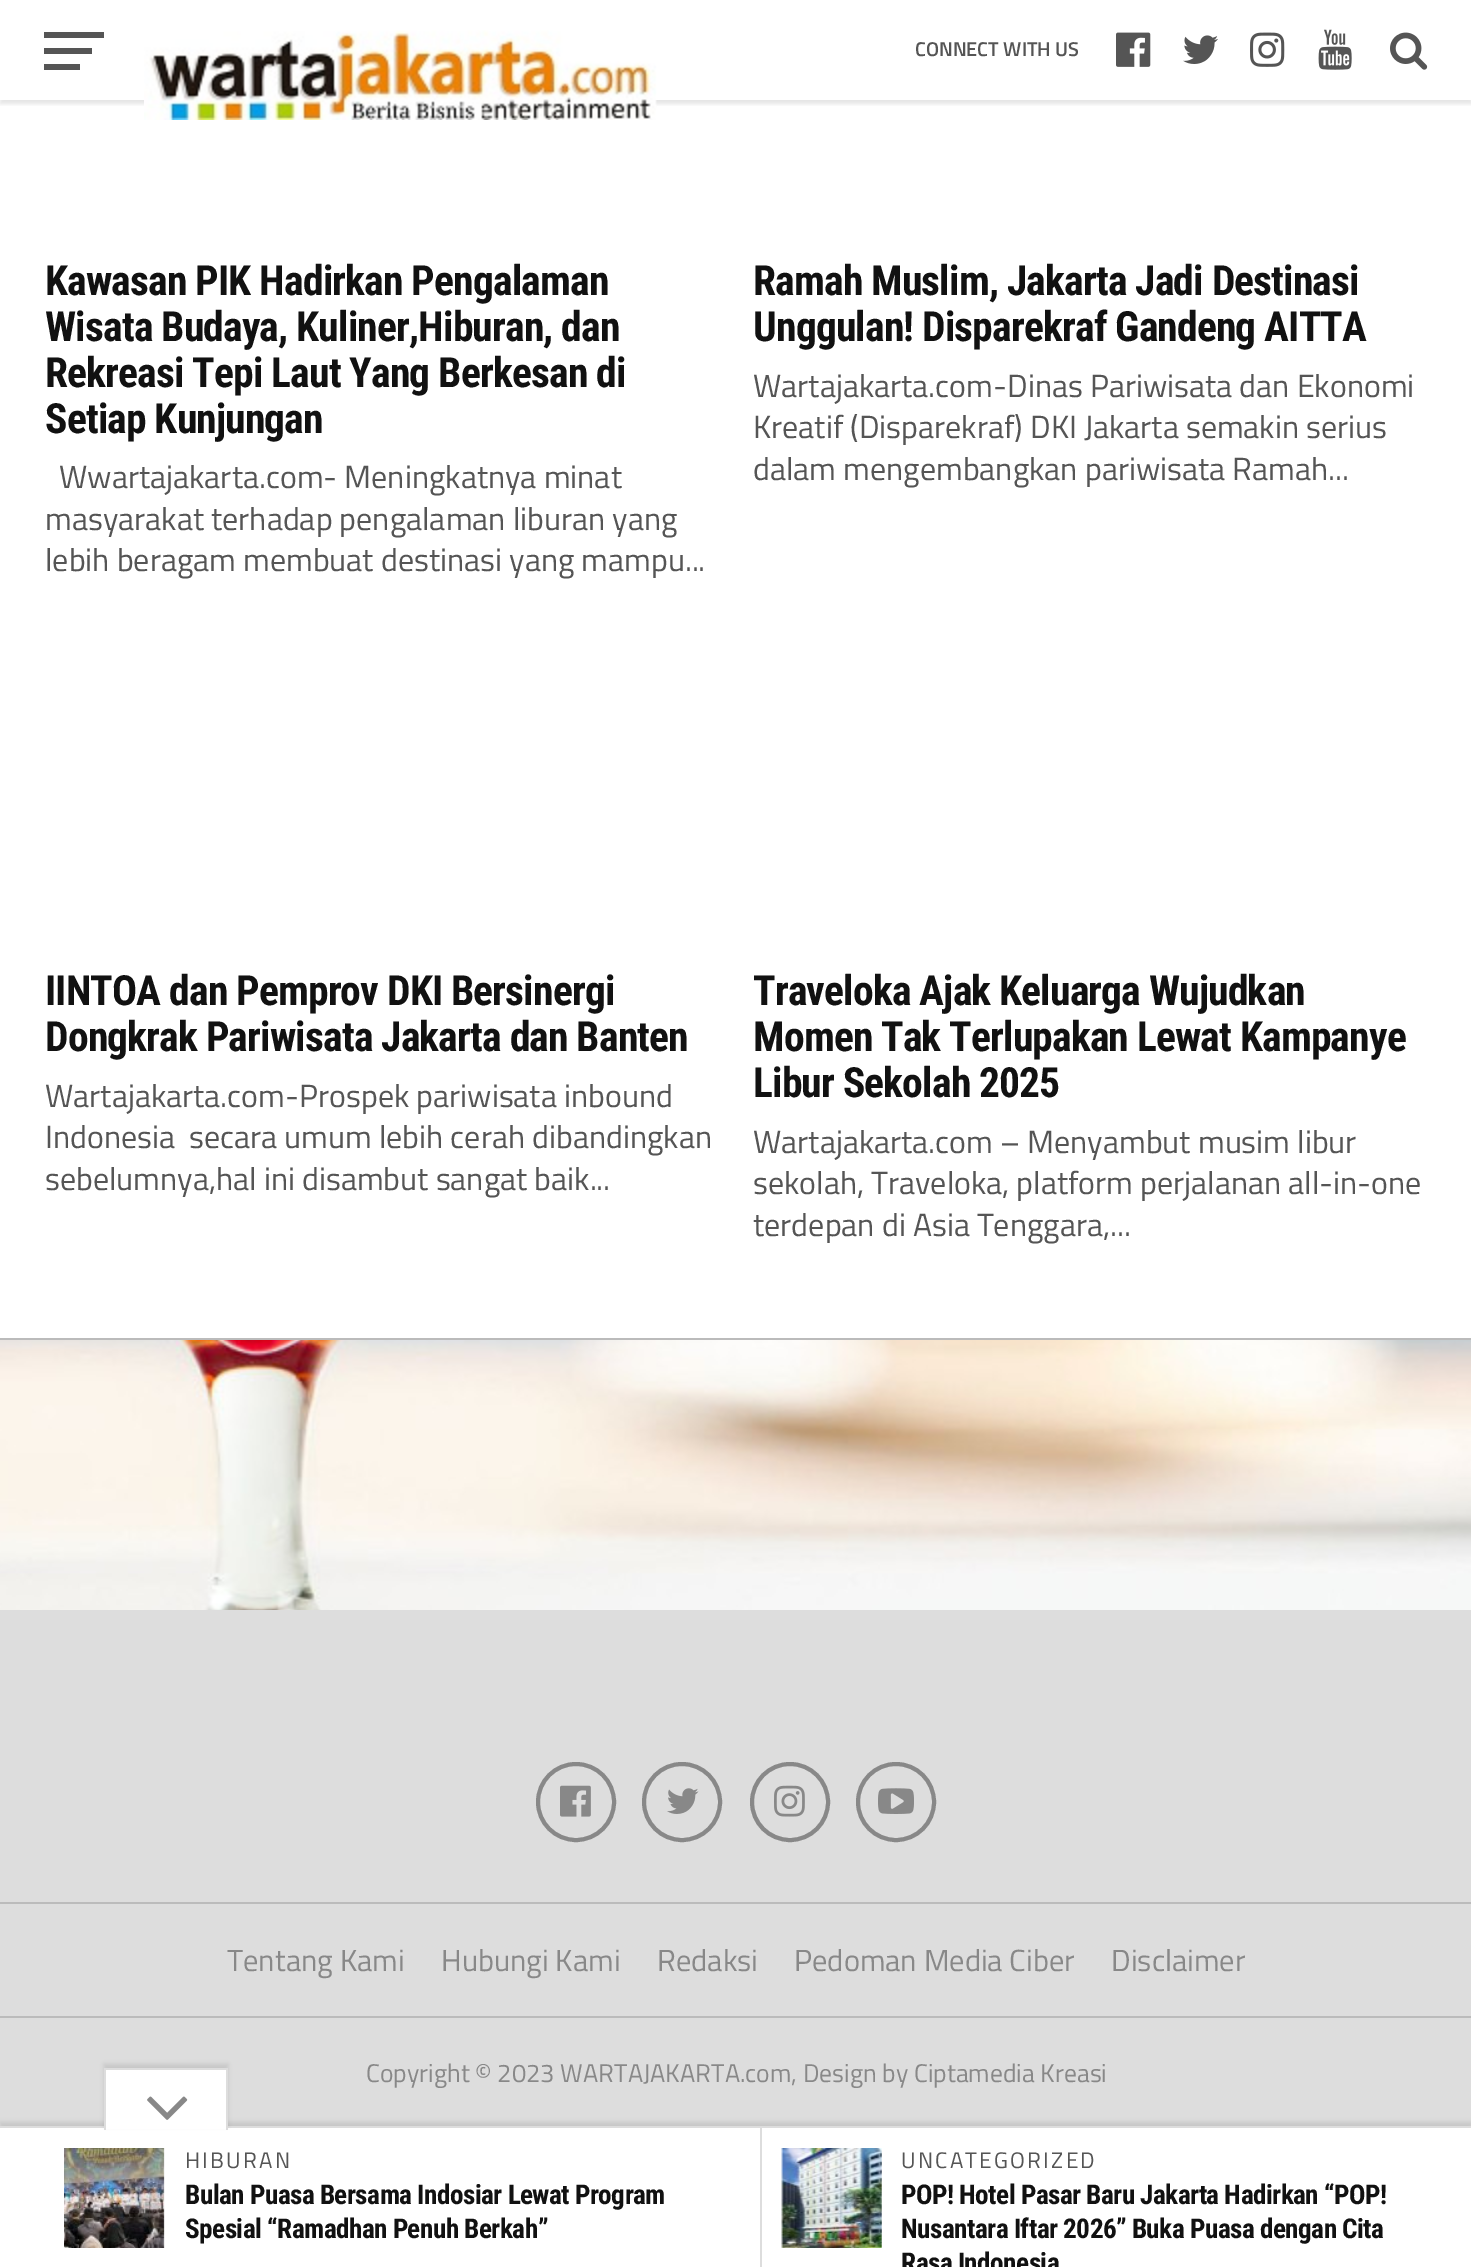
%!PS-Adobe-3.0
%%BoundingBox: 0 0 1471 2267
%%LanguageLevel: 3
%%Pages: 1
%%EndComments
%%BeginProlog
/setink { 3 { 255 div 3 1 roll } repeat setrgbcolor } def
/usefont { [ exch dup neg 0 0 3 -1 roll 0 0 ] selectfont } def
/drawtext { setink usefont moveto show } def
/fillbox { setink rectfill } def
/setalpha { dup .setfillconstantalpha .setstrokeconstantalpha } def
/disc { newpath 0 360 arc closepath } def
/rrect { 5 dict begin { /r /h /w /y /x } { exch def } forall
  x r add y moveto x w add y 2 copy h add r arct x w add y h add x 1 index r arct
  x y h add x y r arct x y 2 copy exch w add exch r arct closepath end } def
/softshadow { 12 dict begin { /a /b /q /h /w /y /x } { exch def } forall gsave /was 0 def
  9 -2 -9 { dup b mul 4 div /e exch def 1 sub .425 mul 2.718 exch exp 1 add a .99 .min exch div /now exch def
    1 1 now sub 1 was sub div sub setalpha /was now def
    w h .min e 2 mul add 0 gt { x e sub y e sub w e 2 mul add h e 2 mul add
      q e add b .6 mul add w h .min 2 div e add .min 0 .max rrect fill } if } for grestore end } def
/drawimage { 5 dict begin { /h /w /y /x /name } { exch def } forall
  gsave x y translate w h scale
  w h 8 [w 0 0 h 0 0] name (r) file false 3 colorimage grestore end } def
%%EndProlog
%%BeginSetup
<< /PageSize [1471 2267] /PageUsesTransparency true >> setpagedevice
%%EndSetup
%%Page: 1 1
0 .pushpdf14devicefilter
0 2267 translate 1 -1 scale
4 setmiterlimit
0 0 1471 2267 255 255 255 fillbox
(assets/img1.rgb) 0 1340 1471 270 drawimage
gsave
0 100 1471 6 rectclip
0 0 0 setink
0 4 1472 100 0 2 0.1 softshadow
grestore
44 32 60 6 85 85 85 fillbox
44 48 48 6 85 85 85 fillbox
44 64 36 6 85 85 85 fillbox
(assets/img2.rgb) 144 30 513 90 drawimage
(CONNECT WITH US) 915 56 /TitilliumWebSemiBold-SemiBold 20 85 85 85 drawtext
(assets/img3.rgb) 1116 32 35 35 drawimage
(assets/img4.rgb) 1183 35 35 29 drawimage
(assets/img5.rgb) 1250 32 35 35 drawimage
(assets/img6.rgb) 1318 29 34 41 drawimage
(assets/img7.rgb) 1390 32 38 38 drawimage
0 1338 1471 2 187 187 187 fillbox
/RobotoCondensed-Bold 41.6 usefont
17 17 17 setink
45 295 moveto -0.85 0 (Kawasan PIK Hadirkan Pengalaman) ashow
45 341 moveto -0.85 0 (Wisata Budaya, Kuliner,Hiburan, dan) ashow
45 387 moveto -0.85 0 (Rekreasi Tepi Laut Yang Berkesan di) ashow
45 433 moveto -0.85 0 (Setiap Kunjungan) ashow
(Wwartajakarta.com- Meningkatnya minat) 59 488 /TitilliumWeb-Regular 32 85 85 85 drawtext
(masyarakat terhadap pengalaman liburan yang) 45 530 /TitilliumWeb-Regular 32 85 85 85 drawtext
(lebih beragam membuat destinasi yang mampu...) 45 571 /TitilliumWeb-Regular 32 85 85 85 drawtext
/RobotoCondensed-Bold 41.6 usefont
17 17 17 setink
753 295 moveto -0.85 0 (Ramah Muslim, Jakarta Jadi Destinasi) ashow
753 341 moveto -0.85 0 (Unggulan! Disparekraf Gandeng AITTA) ashow
(Wartajakarta.com-Dinas Pariwisata dan Ekonomi) 753 397 /TitilliumWeb-Regular 32 85 85 85 drawtext
(Kreatif \(Disparekraf\) DKI Jakarta semakin serius) 753 438 /TitilliumWeb-Regular 32 85 85 85 drawtext
(dalam mengembangkan pariwisata Ramah...) 753 480 /TitilliumWeb-Regular 32 85 85 85 drawtext
/RobotoCondensed-Bold 41.6 usefont
17 17 17 setink
45 1005 moveto -0.85 0 (IINTOA dan Pemprov DKI Bersinergi) ashow
45 1051 moveto -0.85 0 (Dongkrak Pariwisata Jakarta dan Banten) ashow
(Wartajakarta.com-Prospek pariwisata inbound) 45 1107 /TitilliumWeb-Regular 32 85 85 85 drawtext
(Indonesia  secara umum lebih cerah dibandingkan) 45 1148 /TitilliumWeb-Regular 32 85 85 85 drawtext
(sebelumnya,hal ini disambut sangat baik...) 45 1190 /TitilliumWeb-Regular 32 85 85 85 drawtext
/RobotoCondensed-Bold 41.6 usefont
17 17 17 setink
753 1005 moveto -0.85 0 (Traveloka Ajak Keluarga Wujudkan) ashow
753 1051 moveto -0.85 0 (Momen Tak Terlupakan Lewat Kampanye) ashow
753 1097 moveto -0.85 0 (Libur Sekolah 2025) ashow
(Wartajakarta.com – Menyambut musim libur) 753 1153 /TitilliumWeb-Regular 32 85 85 85 drawtext
(sekolah, Traveloka, platform perjalanan all-in-one) 753 1194 /TitilliumWeb-Regular 32 85 85 85 drawtext
(terdepan di Asia Tenggara,...) 753 1236 /TitilliumWeb-Regular 32 85 85 85 drawtext
0 1610 1471 516 221 221 221 fillbox
136 136 136 setink
4 setlinewidth
576 1802 38 disc stroke
(assets/img8.rgb) 560 1785 31 32 drawimage
682 1802 38 disc stroke
(assets/img9.rgb) 667 1788 32 26 drawimage
790 1802 38 disc stroke
(assets/img10.rgb) 774 1785 31 32 drawimage
896 1802 38 disc stroke
(assets/img11.rgb) 878 1788 36 26 drawimage
0 1902 1471 2 187 187 187 fillbox
0 2016 1471 2 187 187 187 fillbox
(Tentang Kami) 227 1971 /TitilliumWeb-Regular 30.5 136 136 136 drawtext
(Hubungi Kami) 441 1971 /TitilliumWeb-Regular 30.5 136 136 136 drawtext
(Redaksi) 657 1971 /TitilliumWeb-Regular 30.5 136 136 136 drawtext
(Pedoman Media Ciber) 794 1971 /TitilliumWeb-Regular 30.5 136 136 136 drawtext
(Disclaimer) 1111 1971 /TitilliumWeb-Regular 30.5 136 136 136 drawtext
(Copyright © 2023 WARTAJAKARTA.com, Design by Ciptamedia Kreasi) 366 2082 /TitilliumWeb-Regular 25.6 136 136 136 drawtext
0 0 0 setink
0 2122 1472 142 0 2 0.1 softshadow
0 2128 1471 139 255 255 255 fillbox
0 2126 1471 2 221 221 221 fillbox
0 0 0 setink
104 2064 124 62 0 2 0.1 softshadow
106 2070 120 59 255 255 255 fillbox
104 2068 124 2 221 221 221 fillbox
226 2068 2 62 221 221 221 fillbox
104 2068 2 62 221 221 221 fillbox
(assets/img12.rgb) 147 2096 41 24 drawimage
(assets/img13.rgb) 64 2148 101 100 drawimage
/TitilliumWeb-Regular 22.5 usefont
85 85 85 setink
185 2168 moveto 2.25 0 (HIBURAN) ashow
/RobotoCondensed-Bold 27.25 usefont
17 17 17 setink
185 2204 moveto -0.55 0 (Bulan Puasa Bersama Indosiar Lewat Program) ashow
185 2238 moveto -0.55 0 (Spesial “Ramadhan Penuh Berkah”) ashow
760 2128 2 139 221 221 221 fillbox
(assets/img14.rgb) 781 2148 101 100 drawimage
/TitilliumWeb-Regular 22.5 usefont
85 85 85 setink
901 2168 moveto 2.25 0 (UNCATEGORIZED) ashow
/RobotoCondensed-Bold 27.25 usefont
17 17 17 setink
901 2204 moveto -0.55 0 (POP! Hotel Pasar Baru Jakarta Hadirkan “POP!) ashow
901 2238 moveto -0.55 0 (Nusantara Iftar 2026” Buka Puasa dengan Cita) ashow
901 2272 moveto -0.55 0 (Rasa Indonesia) ashow
.poppdf14devicefilter showpage
%%EOF
